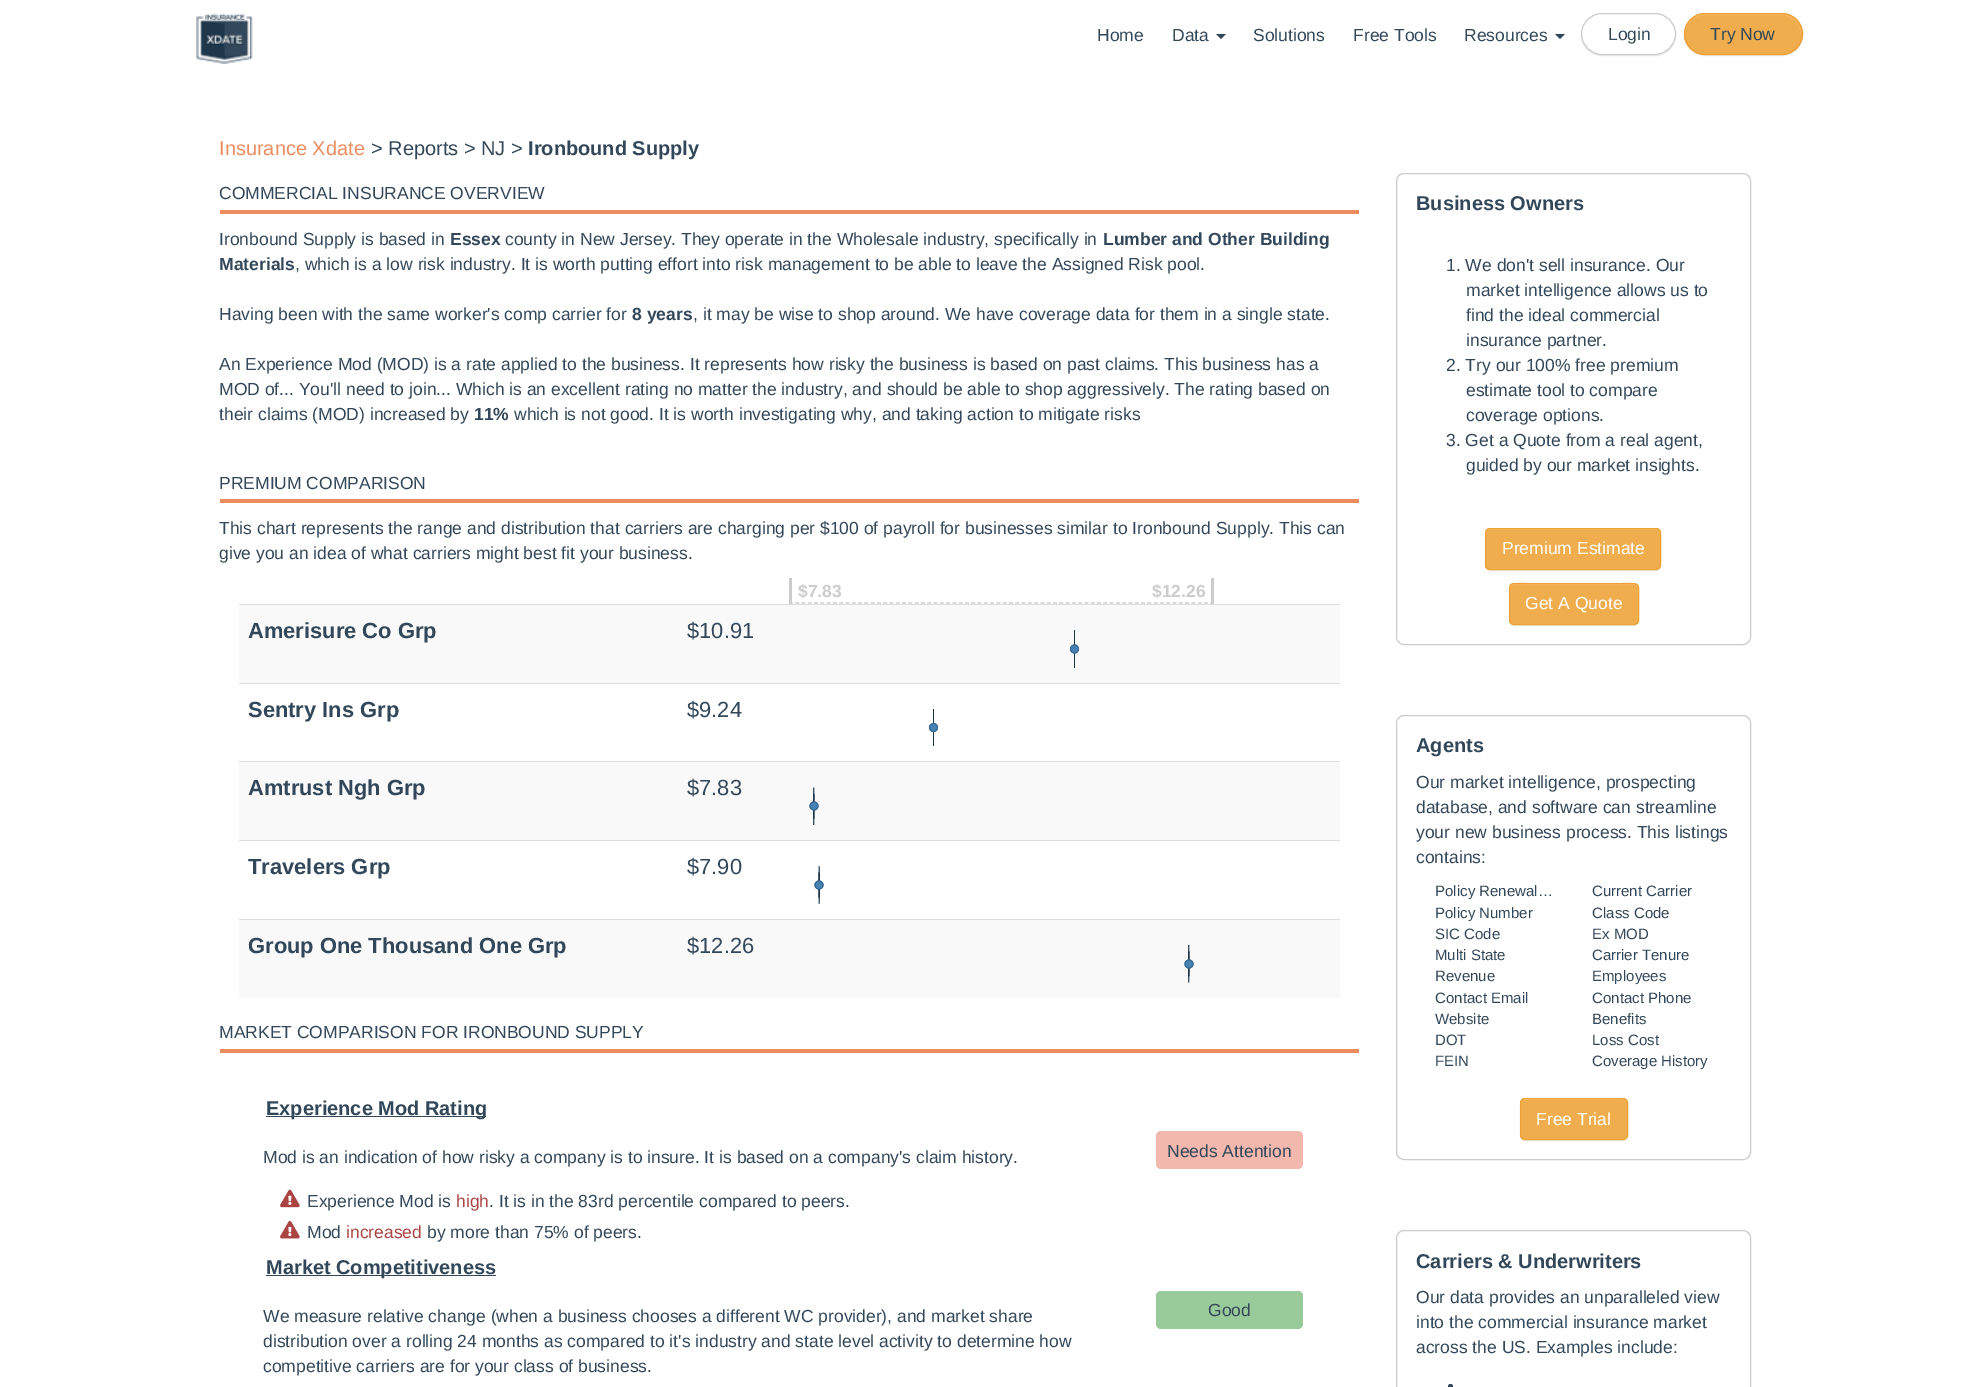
%!PS-Adobe-3.0
%%BoundingBox: 0 0 1988 1387
%%LanguageLevel: 3
%%Pages: 1
%%EndComments
%%BeginProlog
/setink { 3 { 255 div 3 1 roll } repeat setrgbcolor } def
/usefont { [ exch dup neg 0 0 3 -1 roll 0 0 ] selectfont } def
/drawtext { setink usefont moveto show } def
/fillbox { setink rectfill } def
/setalpha { dup .setfillconstantalpha .setstrokeconstantalpha } def
/disc { newpath 0 360 arc closepath } def
/rrect { 5 dict begin { /r /h /w /y /x } { exch def } forall
  x r add y moveto x w add y 2 copy h add r arct x w add y h add x 1 index r arct
  x y h add x y r arct x y 2 copy exch w add exch r arct closepath end } def
/softshadow { 12 dict begin { /a /b /q /h /w /y /x } { exch def } forall gsave /was 0 def
  9 -2 -9 { dup b mul 4 div /e exch def 1 sub .425 mul 2.718 exch exp 1 add a .99 .min exch div /now exch def
    1 1 now sub 1 was sub div sub setalpha /was now def
    w h .min e 2 mul add 0 gt { x e sub y e sub w e 2 mul add h e 2 mul add
      q e add b .6 mul add w h .min 2 div e add .min 0 .max rrect fill } if } for grestore end } def
/drawimage { 5 dict begin { /h /w /y /x /name } { exch def } forall
  gsave x y translate w h scale
  w h 8 [w 0 0 h 0 0] name (r) file false 3 colorimage grestore end } def
%%EndProlog
%%BeginSetup
<< /PageSize [1988 1387] /PageUsesTransparency true >> setpagedevice
%%EndSetup
%%Page: 1 1
0 .pushpdf14devicefilter
0 1387 translate 1 -1 scale
4 setmiterlimit
0 0 1988 1387 255 255 255 fillbox
(assets/img1.rgb) 196 13 57 51 drawimage
(Home) 1097 41 /LiberationSans-Regular 17.5 50 71 89 drawtext
(Data) 1172 41 /LiberationSans-Regular 17.5 50 71 89 drawtext
1216 34 moveto 1226 34 lineto 1221 39 lineto closepath fill
(Solutions) 1253 41 /LiberationSans-Regular 17.5 50 71 89 drawtext
(Free Tools) 1353 41 /LiberationSans-Regular 17.5 50 71 89 drawtext
(Resources) 1464 41 /LiberationSans-Regular 17.5 50 71 89 drawtext
1555 34 moveto 1565 34 lineto 1560 39 lineto closepath fill
0 0 0 setink
1581 14 95 42 21 0.5 0.07 softshadow
255 255 255 setink
1581.5 13.5 94 41 20.5 rrect gsave fill grestore
204 204 204 setink
stroke
(Login) 1608 40 /LiberationSans-Regular 17.5 50 71 89 drawtext
0 0 0 setink
1684 14 119 42 21 0.5 0.07 softshadow
240 173 78 setink
1684 13 119 42 21 rrect fill
242 185 105 setink
1705 15 moveto 1781 15 lineto 1792 15 1801 24 1801 35 curveto 1801 25 1794 16 1785 14 curveto 1768 14 lineto 1701 14 lineto 1692 16 1685 25 1685 35 curveto 1685 24 1694 15 1705 15 curveto closepath fill
238 162 54 setink
1684.5 13.5 118 41 20.5 rrect stroke
(Try Now) 1710 40 /LiberationSans-Regular 17.5 50 71 89 drawtext
(Insurance Xdate) 219 155 /LiberationSans-Regular 20 237 141 95 drawtext
(> Reports > NJ >) 371 155 /LiberationSans-Regular 20 50 71 89 drawtext
(Ironbound Supply) 528 155 /LiberationSans-Bold 20 50 71 89 drawtext
220 210 1139 4 237 141 95 fillbox
(COMMERCIAL INSURANCE OVERVIEW) 219 199 /LiberationSans-Regular 17.5 50 71 89 drawtext
(Ironbound Supply is based in) 219 245 /LiberationSans-Regular 17.5 50 71 89 drawtext
(Essex) 450 245 /LiberationSans-Bold 17.5 50 71 89 drawtext
(county in New Jersey. They operate in the Wholesale industry, specifically in) 505 245 /LiberationSans-Regular 17.5 50 71 89 drawtext
(Lumber and Other Building) 1103 245 /LiberationSans-Bold 17.5 50 71 89 drawtext
(Materials) 219 270 /LiberationSans-Bold 17.5 50 71 89 drawtext
(, which is a low risk industry. It is worth putting effort into risk management to be able to leave the Assigned Risk pool.) 295 270 /LiberationSans-Regular 17.5 50 71 89 drawtext
(Having been with the same worker's comp carrier for) 219 320 /LiberationSans-Regular 17.5 50 71 89 drawtext
(8 years) 632 320 /LiberationSans-Bold 17.5 50 71 89 drawtext
(, it may be wise to shop around. We have coverage data for them in a single state.) 693 320 /LiberationSans-Regular 17.5 50 71 89 drawtext
(An Experience Mod \(MOD\) is a rate applied to the business. It represents how risky the business is based on past claims. This business has a) 219 370 /LiberationSans-Regular 17.5 50 71 89 drawtext
(MOD of... You'll need to join... Which is an excellent rating no matter the industry, and should be able to shop aggressively. The rating based on) 219 395 /LiberationSans-Regular 17.5 50 71 89 drawtext
(their claims \(MOD\) increased by) 219 420 /LiberationSans-Regular 17.5 50 71 89 drawtext
(11%) 474 420 /LiberationSans-Bold 17.5 50 71 89 drawtext
(which is not good. It is worth investigating why, and taking action to mitigate risks) 514 420 /LiberationSans-Regular 17.5 50 71 89 drawtext
220 499 1139 4 237 141 95 fillbox
(PREMIUM COMPARISON) 219 489 /LiberationSans-Regular 17.5 50 71 89 drawtext
(This chart represents the range and distribution that carriers are charging per $100 of payroll for businesses similar to Ironbound Supply. This can) 219 534 /LiberationSans-Regular 17.5 50 71 89 drawtext
(give you an idea of what carriers might best fit your business.) 219 559 /LiberationSans-Regular 17.5 50 71 89 drawtext
1211 578 3 26 204 204 204 fillbox
1.2 setlinewidth
[3.75 2.54] 0 setdash
789 603 moveto 1214 603 lineto stroke
789 578 3 26 204 204 204 fillbox
($7.83) 798 597 /LiberationSans-Bold 17.5 204 204 204 drawtext
($12.26) 1152 597 /LiberationSans-Bold 17.5 204 204 204 drawtext
239 605 1101 78 249 249 249 fillbox
(Amerisure Co Grp) 248 638 /LiberationSans-Bold 21.9 50 71 89 drawtext
239 604 1101 1 221 221 221 fillbox
($10.91) 687 638 /LiberationSans-Regular 21.9 50 71 89 drawtext
(assets/img2.rgb) 1069 630 11 38 drawimage
(Sentry Ins Grp) 248 717 /LiberationSans-Bold 21.9 50 71 89 drawtext
239 683 1101 1 221 221 221 fillbox
($9.24) 687 717 /LiberationSans-Regular 21.9 50 71 89 drawtext
(assets/img3.rgb) 928 709 11 37 drawimage
239 762 1101 78 249 249 249 fillbox
(Amtrust Ngh Grp) 248 795 /LiberationSans-Bold 21.9 50 71 89 drawtext
239 761 1101 1 221 221 221 fillbox
($7.83) 687 795 /LiberationSans-Regular 21.9 50 71 89 drawtext
(assets/img4.rgb) 809 787 10 38 drawimage
(Travelers Grp) 248 874 /LiberationSans-Bold 21.9 50 71 89 drawtext
239 840 1101 1 221 221 221 fillbox
($7.90) 687 874 /LiberationSans-Regular 21.9 50 71 89 drawtext
(assets/img5.rgb) 814 866 10 38 drawimage
239 920 1101 78 249 249 249 fillbox
(Group One Thousand One Grp) 248 953 /LiberationSans-Bold 21.9 50 71 89 drawtext
239 919 1101 1 221 221 221 fillbox
($12.26) 687 953 /LiberationSans-Regular 21.9 50 71 89 drawtext
(assets/img6.rgb) 1184 945 10 38 drawimage
220 1049 1139 4 237 141 95 fillbox
(MARKET COMPARISON FOR IRONBOUND SUPPLY) 219 1038 /LiberationSans-Regular 17.5 50 71 89 drawtext
266 1116 220 1 50 71 89 fillbox
(Experience Mod Rating) 266 1115 /LiberationSans-Bold 20 50 71 89 drawtext
(Mod is an indication of how risky a company is to insure. It is based on a company's claim history.) 263 1163 /LiberationSans-Regular 17.5 50 71 89 drawtext
(assets/img7.rgb) 280 1189 20 19 drawimage
(Experience Mod is) 307 1207 /LiberationSans-Regular 17.5 50 71 89 drawtext
(high) 456 1207 /LiberationSans-Regular 17.5 169 68 66 drawtext
(. It is in the 83rd percentile compared to peers.) 489 1207 /LiberationSans-Regular 17.5 50 71 89 drawtext
(assets/img8.rgb) 280 1221 20 18 drawimage
(Mod) 307 1238 /LiberationSans-Regular 17.5 50 71 89 drawtext
(increased) 346 1238 /LiberationSans-Regular 17.5 169 68 66 drawtext
(by more than 75% of peers.) 427 1238 /LiberationSans-Regular 17.5 50 71 89 drawtext
243 184 173 setink
1156 1131 147 38 5 rrect fill
(Needs Attention) 1167 1157 /LiberationSans-Regular 17.5 50 71 89 drawtext
266 1275 230 1 50 71 89 fillbox
(Market Competitiveness) 266 1274 /LiberationSans-Bold 20 50 71 89 drawtext
(We measure relative change \(when a business chooses a different WC provider\), and market share) 263 1322 /LiberationSans-Regular 17.5 50 71 89 drawtext
(distribution over a rolling 24 months as compared to it's industry and state level activity to determine how) 263 1347 /LiberationSans-Regular 17.5 50 71 89 drawtext
(competitive carriers are for your class of business.) 263 1372 /LiberationSans-Regular 17.5 50 71 89 drawtext
153 202 153 setink
1156 1291 147 38 5 rrect fill
(Good) 1208 1316 /LiberationSans-Regular 17.5 50 71 89 drawtext
204 204 204 setink
1 setlinewidth
[] 0 setdash
1396.5 173.5 354 471 7.5 rrect stroke
(Business Owners) 1416 210 /LiberationSans-Bold 20 50 71 89 drawtext
(1. We don't sell insurance. Our) 1446 271 /LiberationSans-Regular 17.5 50 71 89 drawtext
(market intelligence allows us to) 1466 296 /LiberationSans-Regular 17.5 50 71 89 drawtext
(find the ideal commercial) 1466 321 /LiberationSans-Regular 17.5 50 71 89 drawtext
(insurance partner.) 1466 346 /LiberationSans-Regular 17.5 50 71 89 drawtext
(2. Try our 100% free premium) 1446 371 /LiberationSans-Regular 17.5 50 71 89 drawtext
(estimate tool to compare) 1466 396 /LiberationSans-Regular 17.5 50 71 89 drawtext
(coverage options.) 1466 421 /LiberationSans-Regular 17.5 50 71 89 drawtext
(3. Get a Quote from a real agent,) 1446 446 /LiberationSans-Regular 17.5 50 71 89 drawtext
(guided by our market insights.) 1466 471 /LiberationSans-Regular 17.5 50 71 89 drawtext
0 0 0 setink
1485 529 176 42 5 0.5 0.07 softshadow
240 173 78 setink
1485 528 176 42 5 rrect fill
242 185 105 setink
1490 530 moveto 1656 530 lineto 1658 530 1660 532 1660 534 curveto 1660 533 lineto 1660 531 1658 529 1656 529 curveto 1490 529 lineto 1488 529 1486 531 1486 533 curveto 1486 534 lineto 1486 532 1488 530 1490 530 curveto closepath fill
238 162 54 setink
1485.5 528.5 175 41 4.5 rrect stroke
(Premium Estimate) 1502 554 /LiberationSans-Regular 17.5 255 255 255 drawtext
0 0 0 setink
1509 584 130 42 5 0.5 0.07 softshadow
240 173 78 setink
1509 583 130 42 5 rrect fill
242 185 105 setink
1514 585 moveto 1634 585 lineto 1636 585 1638 587 1638 589 curveto 1638 579 1616 584 1614 584 curveto 1534 584 lineto 1532 584 1510 579 1510 589 curveto 1510 587 1512 585 1514 585 curveto closepath fill
238 162 54 setink
1509.5 583.5 129 41 4.5 rrect stroke
(Get A Quote) 1525 609 /LiberationSans-Regular 17.5 255 255 255 drawtext
204 204 204 setink
1396.5 715.5 354 444 7.5 rrect stroke
(Agents) 1416 752 /LiberationSans-Bold 20 50 71 89 drawtext
(Our market intelligence, prospecting) 1416 788 /LiberationSans-Regular 17.5 50 71 89 drawtext
(database, and software can streamline) 1416 813 /LiberationSans-Regular 17.5 50 71 89 drawtext
(your new business process. This listings) 1416 838 /LiberationSans-Regular 17.5 50 71 89 drawtext
(contains:) 1416 863 /LiberationSans-Regular 17.5 50 71 89 drawtext
(Policy Renewal…) 1435 896 /LiberationSans-Regular 15 50 71 89 drawtext
(Current Carrier) 1592 896 /LiberationSans-Regular 15 50 71 89 drawtext
(Policy Number) 1435 918 /LiberationSans-Regular 15 50 71 89 drawtext
(Class Code) 1592 918 /LiberationSans-Regular 15 50 71 89 drawtext
(SIC Code) 1435 939 /LiberationSans-Regular 15 50 71 89 drawtext
(Ex MOD) 1592 939 /LiberationSans-Regular 15 50 71 89 drawtext
(Multi State) 1435 960 /LiberationSans-Regular 15 50 71 89 drawtext
(Carrier Tenure) 1592 960 /LiberationSans-Regular 15 50 71 89 drawtext
(Revenue) 1435 981 /LiberationSans-Regular 15 50 71 89 drawtext
(Employees) 1592 981 /LiberationSans-Regular 15 50 71 89 drawtext
(Contact Email) 1435 1003 /LiberationSans-Regular 15 50 71 89 drawtext
(Contact Phone) 1592 1003 /LiberationSans-Regular 15 50 71 89 drawtext
(Website) 1435 1024 /LiberationSans-Regular 15 50 71 89 drawtext
(Benefits) 1592 1024 /LiberationSans-Regular 15 50 71 89 drawtext
(DOT) 1435 1045 /LiberationSans-Regular 15 50 71 89 drawtext
(Loss Cost) 1592 1045 /LiberationSans-Regular 15 50 71 89 drawtext
(FEIN) 1435 1066 /LiberationSans-Regular 15 50 71 89 drawtext
(Coverage History) 1592 1066 /LiberationSans-Regular 15 50 71 89 drawtext
0 0 0 setink
1520 1099 108 42 5 0.5 0.07 softshadow
240 173 78 setink
1520 1098 108 42 5 rrect fill
242 185 105 setink
1525 1100 moveto 1622 1100 lineto 1625 1100 1626 1102 1626 1104 curveto 1626 1095 1610 1099 1606 1099 curveto 1541 1099 lineto 1537 1099 1521 1095 1521 1104 curveto 1521 1102 1523 1100 1525 1100 curveto closepath fill
238 162 54 setink
1520.5 1098.5 107 41 4.5 rrect stroke
(Free Trial) 1536 1125 /LiberationSans-Regular 17.5 255 255 255 drawtext
204 204 204 setink
1396.5 1230.5 354 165 7.5 rrect stroke
(Carriers & Underwriters) 1416 1268 /LiberationSans-Bold 20 50 71 89 drawtext
(Our data provides an unparalleled view) 1416 1303 /LiberationSans-Regular 17.5 50 71 89 drawtext
(into the commercial insurance market) 1416 1328 /LiberationSans-Regular 17.5 50 71 89 drawtext
(across the US. Examples include:) 1416 1353 /LiberationSans-Regular 17.5 50 71 89 drawtext
1450.5 1386.5 2.5 disc fill
.poppdf14devicefilter showpage
%%EOF
